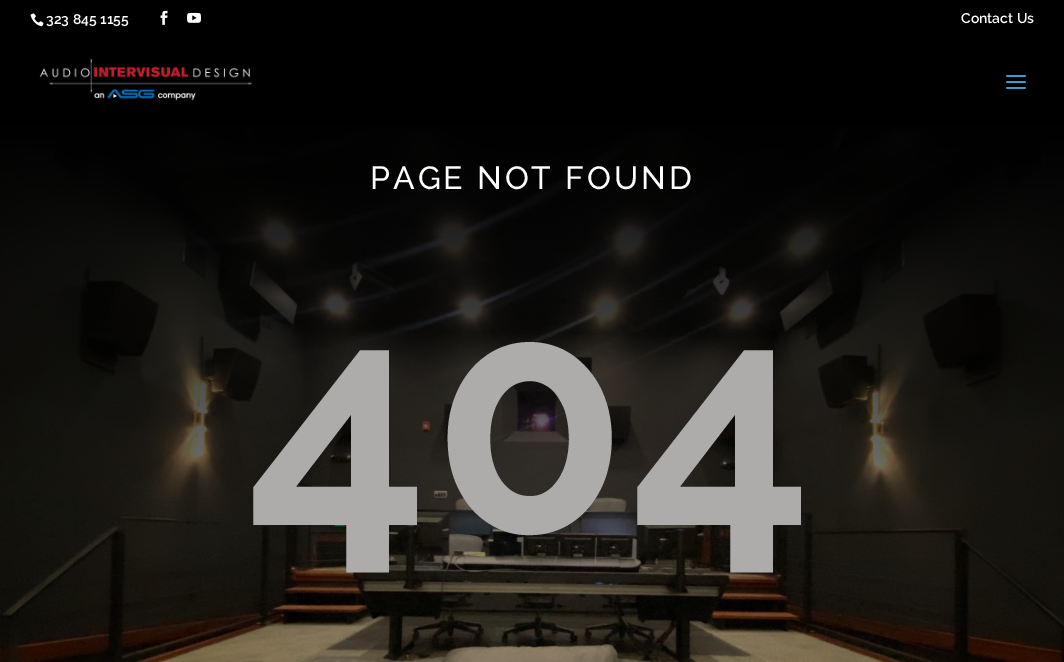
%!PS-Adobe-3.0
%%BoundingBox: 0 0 1064 662
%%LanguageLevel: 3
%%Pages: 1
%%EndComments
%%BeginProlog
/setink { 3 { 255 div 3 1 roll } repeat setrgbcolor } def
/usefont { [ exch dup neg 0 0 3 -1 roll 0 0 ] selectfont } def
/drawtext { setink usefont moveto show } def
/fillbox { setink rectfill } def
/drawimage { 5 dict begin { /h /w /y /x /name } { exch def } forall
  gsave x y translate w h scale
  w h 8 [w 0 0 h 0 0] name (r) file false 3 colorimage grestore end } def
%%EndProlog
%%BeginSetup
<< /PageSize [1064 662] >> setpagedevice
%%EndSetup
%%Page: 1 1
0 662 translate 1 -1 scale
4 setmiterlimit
0 0 1064 662 255 255 255 fillbox
0 0 1064 123 0 0 0 fillbox
(assets/img1.rgb) 39 58 213 43 drawimage
(assets/img2.rgb) 1006 75 20 14 drawimage
(assets/img3.rgb) 30 13 14 14 drawimage
(323 845 1155) 46 24 /Raleway-SemiBold 14 255 255 255 drawtext
(assets/img4.rgb) 160 10 8 15 drawimage
(assets/img5.rgb) 187 12 14 11 drawimage
(Contact Us) 961 23 /Raleway-SemiBold 14 255 255 255 drawtext
(assets/img6.rgb) 0 123 1064 539 drawimage
/Raleway-Medium 32 usefont
370 189 moveto 3 0 (PAGE NOT FOUND) ashow
/Raleway-Bold 319 usefont
173 172 170 setink
247 532 moveto 3 0 (404) ashow
showpage
%%EOF
